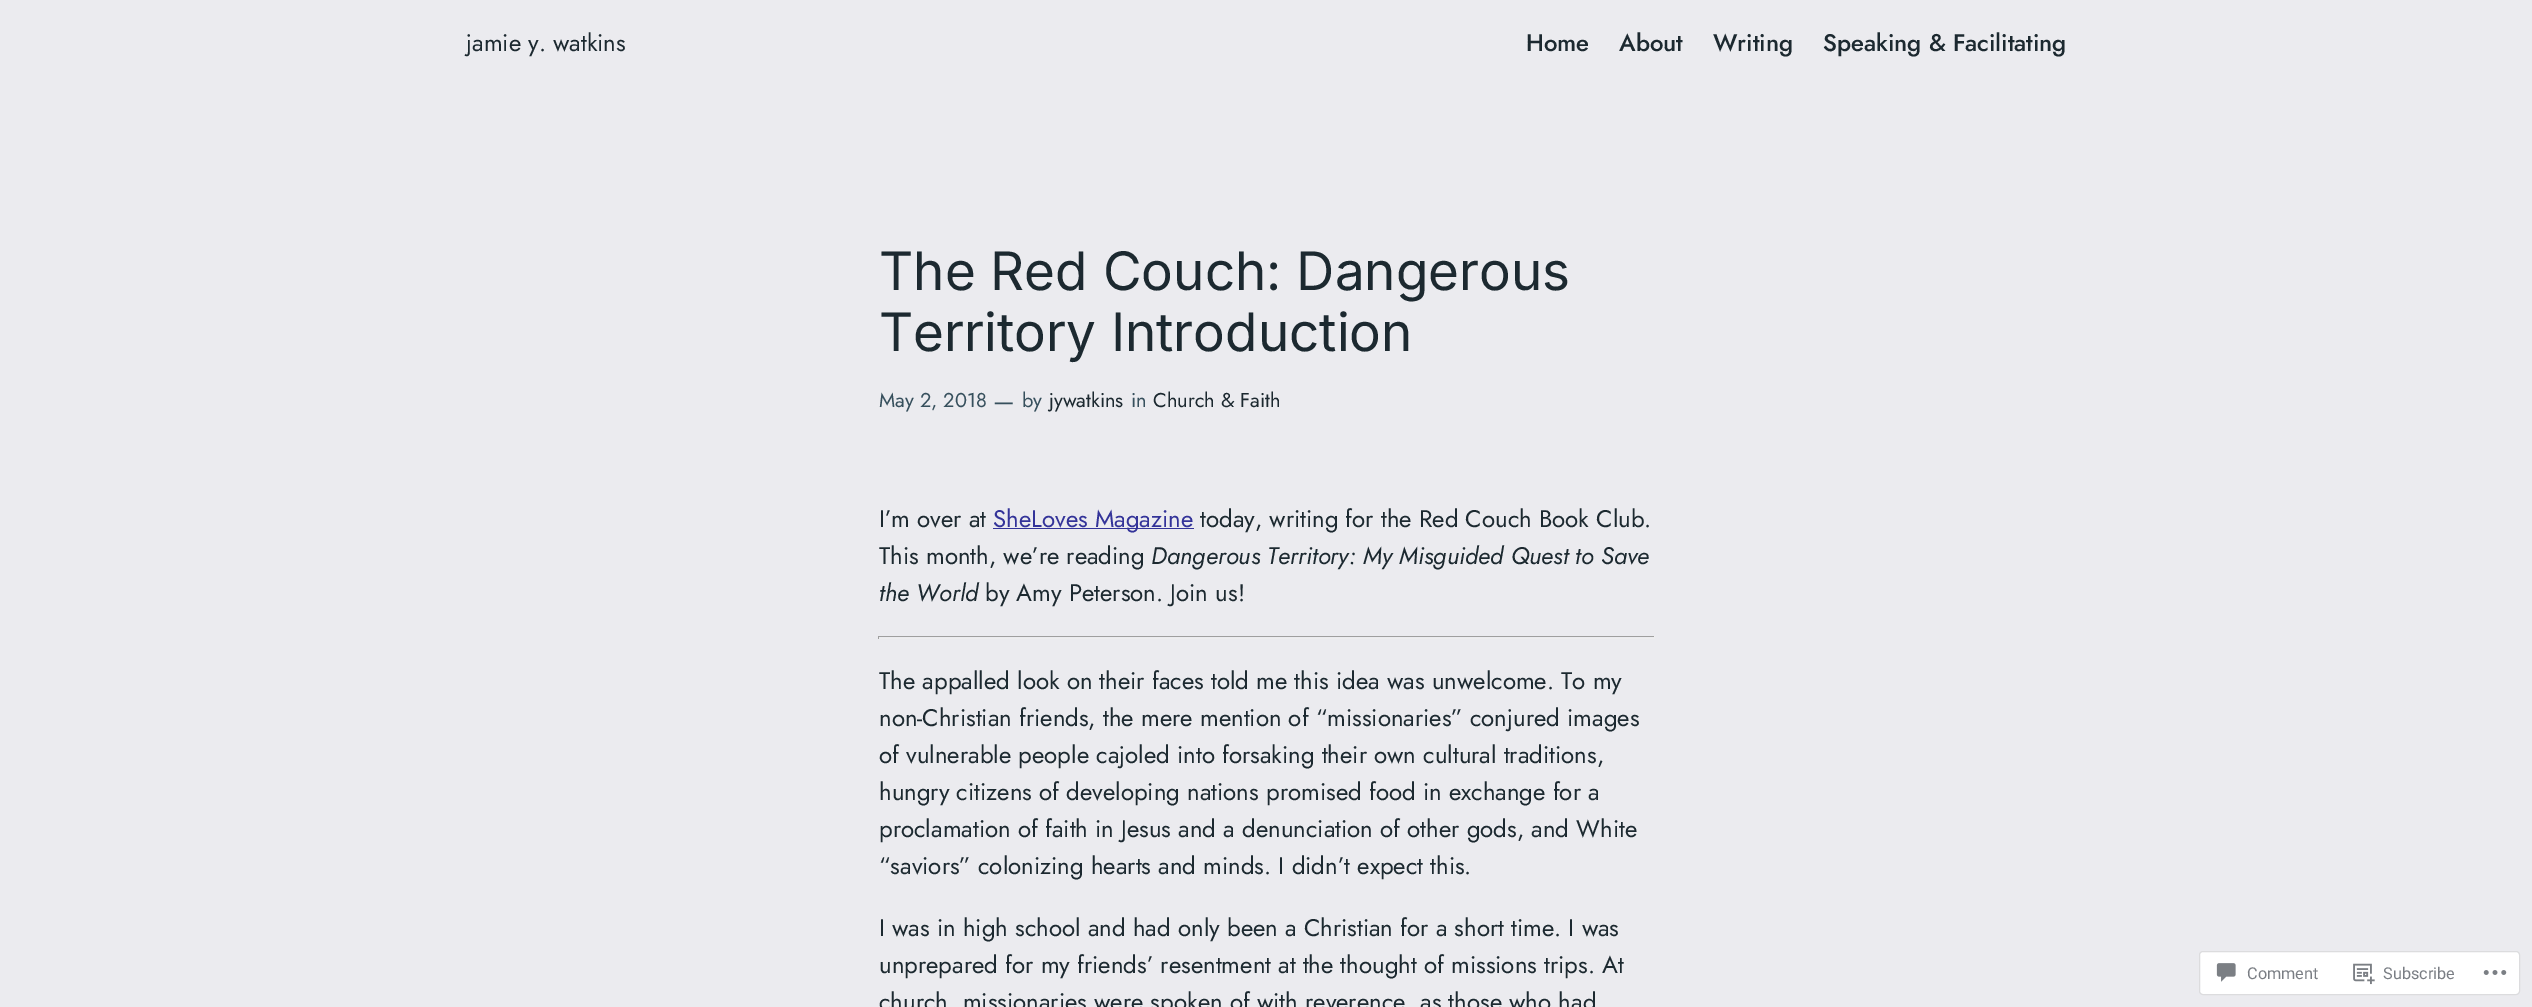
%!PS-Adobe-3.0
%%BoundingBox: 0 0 2532 1007
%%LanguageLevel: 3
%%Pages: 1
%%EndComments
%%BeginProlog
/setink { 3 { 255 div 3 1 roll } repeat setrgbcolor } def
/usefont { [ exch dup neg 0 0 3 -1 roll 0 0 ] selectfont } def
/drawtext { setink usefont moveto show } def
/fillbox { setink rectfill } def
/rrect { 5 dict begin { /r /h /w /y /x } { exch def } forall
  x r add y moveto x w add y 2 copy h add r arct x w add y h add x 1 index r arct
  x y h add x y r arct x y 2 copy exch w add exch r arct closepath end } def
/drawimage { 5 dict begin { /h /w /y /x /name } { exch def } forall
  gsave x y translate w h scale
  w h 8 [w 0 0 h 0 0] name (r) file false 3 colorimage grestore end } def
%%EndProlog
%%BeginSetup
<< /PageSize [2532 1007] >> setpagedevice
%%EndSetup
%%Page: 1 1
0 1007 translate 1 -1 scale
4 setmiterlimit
0 0 2532 1007 235 235 239 fillbox
(jamie y. watkins) 466 51 /Jost-Regular 24 28 41 48 drawtext
(Home) 1526 51 /Jost-Medium 24 28 41 48 drawtext
(About) 1619 51 /Jost-Medium 24 28 41 48 drawtext
(Writing) 1713 51 /Jost-Medium 24 28 41 48 drawtext
(Speaking & Facilitating) 1823 51 /Jost-Medium 24 28 41 48 drawtext
(The Red Couch: Dangerous) 879 290 /Inter-Regular 53 28 41 48 drawtext
(Territory Introduction) 879 351 /Inter-Regular 53 28 41 48 drawtext
(May 2, 2018) 879 407 /Jost-Regular 20 55 80 93 drawtext
(—) 993 409 /Jost-Regular 24 55 80 93 drawtext
(by) 1022 407 /Jost-Regular 20 55 80 93 drawtext
(jywatkins) 1049 407 /Jost-Regular 20 28 41 48 drawtext
(in) 1131 407 /Jost-Regular 20 55 80 93 drawtext
(Church & Faith) 1153 407 /Jost-Regular 20 28 41 48 drawtext
(I’m over at) 879 527 /Jost-Regular 24 28 41 48 drawtext
993 528 201 1 51 51 153 fillbox
(SheLoves Magazine) 993 527 /Jost-Regular 24 51 51 153 drawtext
(today, writing for the Red Couch Book Club.) 1200 527 /Jost-Regular 24 28 41 48 drawtext
(This month, we’re reading) 879 564 /Jost-Regular 24 28 41 48 drawtext
(Dangerous Territory: My Misguided Quest to Save) 1151 564 /Jost-Italic 24 28 41 48 drawtext
(the World) 879 601 /Jost-Italic 24 28 41 48 drawtext
(by Amy Peterson. Join us!) 985 601 /Jost-Regular 24 28 41 48 drawtext
878 636 777 1 159 159 159 fillbox
1654 636 1 3 238 238 238 fillbox
878 638 777 1 238 238 238 fillbox
878 636 1 3 159 159 159 fillbox
(The appalled look on their faces told me this idea was unwelcome. To my) 879 689 /Jost-Regular 24 28 41 48 drawtext
(non-Christian friends, the mere mention of “missionaries” conjured images) 879 726 /Jost-Regular 24 28 41 48 drawtext
(of vulnerable people cajoled into forsaking their own cultural traditions,) 879 763 /Jost-Regular 24 28 41 48 drawtext
(hungry citizens of developing nations promised food in exchange for a) 879 800 /Jost-Regular 24 28 41 48 drawtext
(proclamation of faith in Jesus and a denunciation of other gods, and White) 879 837 /Jost-Regular 24 28 41 48 drawtext
(“saviors” colonizing hearts and minds. I didn’t expect this.) 879 874 /Jost-Regular 24 28 41 48 drawtext
(I was in high school and had only been a Christian for a short time. I was) 879 936 /Jost-Regular 24 28 41 48 drawtext
(unprepared for my friends’ resentment at the thought of missions trips. At) 879 973 /Jost-Regular 24 28 41 48 drawtext
(church, missionaries were spoken of with reverence, as those who had) 879 1010 /Jost-Regular 24 28 41 48 drawtext
255 255 255 setink
2199.5 951.5 320 43 3.5 rrect gsave fill grestore
220 220 222 setink
stroke
(assets/img1.rgb) 2216 963 20 19 drawimage
(Comment) 2247 979 /Roboto-Regular 16.25 122 126 132 drawtext
(assets/img2.rgb) 2353 963 22 22 drawimage
(Subscribe) 2383 979 /Roboto-Regular 16.25 122 126 132 drawtext
(assets/img3.rgb) 2483 970 24 5 drawimage
showpage
%%EOF
